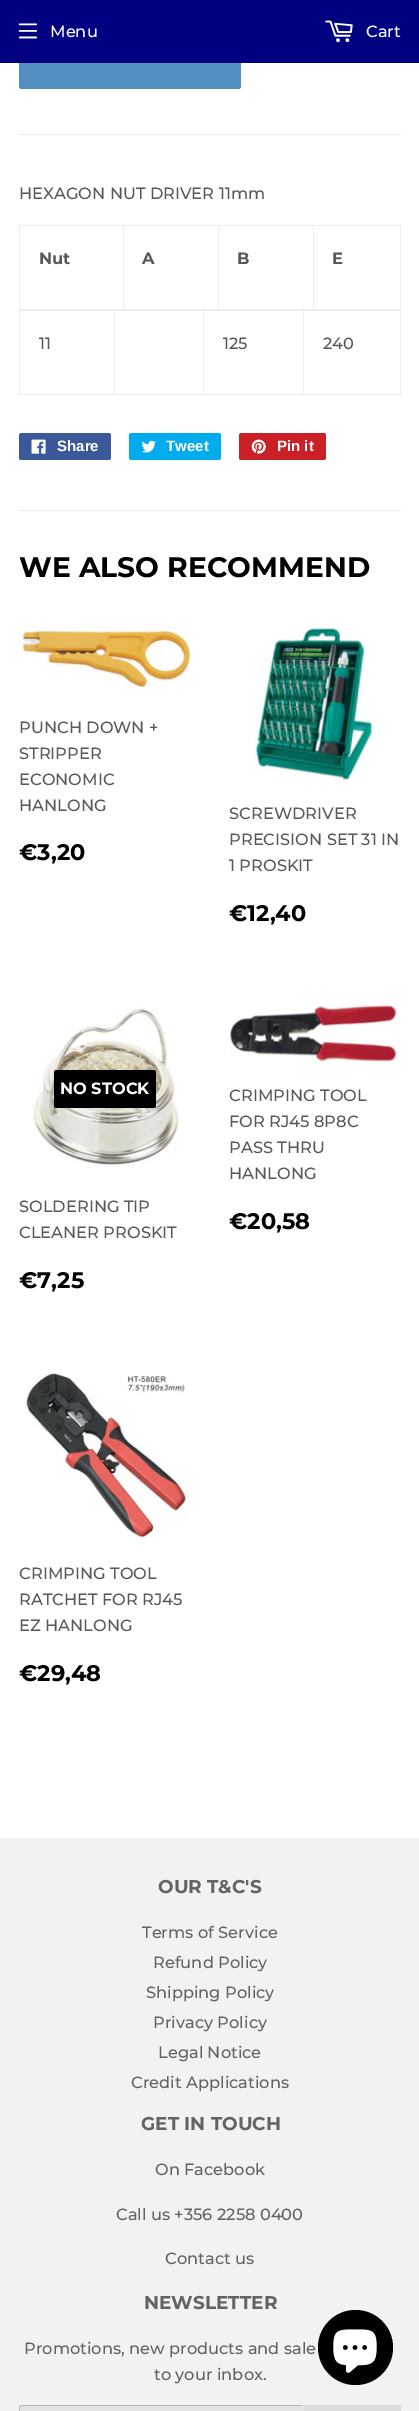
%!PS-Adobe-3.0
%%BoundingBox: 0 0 419 2411
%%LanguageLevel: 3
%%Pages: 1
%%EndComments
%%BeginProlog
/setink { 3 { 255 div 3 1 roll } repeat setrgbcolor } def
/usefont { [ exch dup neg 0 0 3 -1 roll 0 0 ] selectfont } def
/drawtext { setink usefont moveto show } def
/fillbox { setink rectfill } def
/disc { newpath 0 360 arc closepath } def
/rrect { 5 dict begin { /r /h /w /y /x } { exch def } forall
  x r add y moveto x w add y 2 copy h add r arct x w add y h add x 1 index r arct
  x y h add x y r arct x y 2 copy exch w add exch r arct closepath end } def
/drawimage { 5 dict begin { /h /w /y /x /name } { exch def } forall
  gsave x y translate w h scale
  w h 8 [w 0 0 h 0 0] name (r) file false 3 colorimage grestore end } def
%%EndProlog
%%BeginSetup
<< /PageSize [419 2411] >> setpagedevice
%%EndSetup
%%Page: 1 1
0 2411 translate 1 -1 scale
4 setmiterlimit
0 0 419 2411 255 255 255 fillbox
82 142 193 setink
19 20 222 69 2.5 rrect fill
0 0 419 63 1 0 128 fillbox
(assets/img1.rgb) 18 23 20 16 drawimage
(Menu) 50 37 /Montserrat-Medium 16.25 255 255 255 drawtext
(assets/img2.rgb) 325 20 28 23 drawimage
(Cart) 366 37 /Montserrat-Medium 16.25 255 255 255 drawtext
19 134 382 1 236 236 236 fillbox
(HEXAGON NUT DRIVER 11mm) 19 199 /Montserrat-Medium 16.25 88 88 88 drawtext
313 225 88 1 236 236 236 fillbox
400 225 1 85 236 236 236 fillbox
313 309 88 1 236 236 236 fillbox
313 225 1 85 236 236 236 fillbox
218 225 96 1 236 236 236 fillbox
218 309 96 1 236 236 236 fillbox
218 225 1 85 236 236 236 fillbox
123 225 96 1 236 236 236 fillbox
123 309 96 1 236 236 236 fillbox
123 225 1 85 236 236 236 fillbox
19 225 105 1 236 236 236 fillbox
19 309 105 1 236 236 236 fillbox
19 225 1 85 236 236 236 fillbox
(Nut) 39 264 /Montserrat-Bold 16.25 88 88 88 drawtext
(A) 142 264 /Montserrat-Bold 16.25 88 88 88 drawtext
(B) 237 264 /Montserrat-Bold 16.25 88 88 88 drawtext
(E) 332 264 /Montserrat-Bold 16.25 88 88 88 drawtext
303 310 98 1 236 236 236 fillbox
400 310 1 85 236 236 236 fillbox
303 394 98 1 236 236 236 fillbox
303 310 1 85 236 236 236 fillbox
203 310 101 1 236 236 236 fillbox
203 394 101 1 236 236 236 fillbox
203 310 1 85 236 236 236 fillbox
114 310 90 1 236 236 236 fillbox
114 394 90 1 236 236 236 fillbox
114 310 1 85 236 236 236 fillbox
19 310 96 1 236 236 236 fillbox
19 394 96 1 236 236 236 fillbox
19 310 1 85 236 236 236 fillbox
(11) 39 349 /Montserrat-Medium 16.25 88 88 88 drawtext
(125) 223 349 /Montserrat-Medium 16.25 88 88 88 drawtext
(240) 323 349 /Montserrat-Medium 16.25 88 88 88 drawtext
59 89 152 setink
19 433 92 27 2.5 rrect fill
(assets/img3.rgb) 31 439 15 15 drawimage
(Share) 57 451 /LiberationSans-Bold 15 255 255 255 drawtext
0 172 237 setink
129 433 92 27 2.5 rrect fill
(assets/img4.rgb) 141 440 15 13 drawimage
(Tweet) 166 451 /LiberationSans-Bold 15 255 255 255 drawtext
203 32 39 setink
239 433 87 27 2.5 rrect fill
(assets/img5.rgb) 251 439 15 15 drawimage
(Pin it) 277 451 /LiberationSans-Bold 15 255 255 255 drawtext
19 510 382 1 236 236 236 fillbox
(WE ALSO RECOMMEND) 19 577 /Montserrat-Bold 28.2 0 0 0 drawtext
(assets/img6.rgb) 19 625 172 63 drawimage
(PUNCH DOWN +) 19 733 /Montserrat-Medium 16.25 88 88 88 drawtext
(STRIPPER) 19 759 /Montserrat-Medium 16.25 88 88 88 drawtext
(ECONOMIC) 19 785 /Montserrat-Medium 16.25 88 88 88 drawtext
(HANLONG) 19 811 /Montserrat-Medium 16.25 88 88 88 drawtext
(€3,20) 19 860 /Montserrat-Bold 22.5 0 0 0 drawtext
(assets/img7.rgb) 254 627 119 154 drawimage
(SCREWDRIVER) 229 819 /Montserrat-Medium 16.25 88 88 88 drawtext
(PRECISION SET 31 IN) 229 845 /Montserrat-Medium 16.25 88 88 88 drawtext
(1 PROSKIT) 229 871 /Montserrat-Medium 16.25 88 88 88 drawtext
(€12,40) 229 921 /Montserrat-Bold 22.5 0 0 0 drawtext
(assets/img8.rgb) 33 1007 147 160 drawimage
54 1070 102 38 2.5 rrect fill
(NO STOCK) 60 1094 /Montserrat-Bold 16.25 255 255 255 drawtext
(SOLDERING TIP) 19 1212 /Montserrat-Medium 16.25 88 88 88 drawtext
(CLEANER PROSKIT) 19 1238 /Montserrat-Medium 16.25 88 88 88 drawtext
(€7,25) 19 1288 /Montserrat-Bold 22.5 0 0 0 drawtext
(assets/img9.rgb) 229 1002 169 61 drawimage
(CRIMPING TOOL) 229 1101 /Montserrat-Medium 16.25 88 88 88 drawtext
(FOR RJ45 8P8C) 229 1127 /Montserrat-Medium 16.25 88 88 88 drawtext
(PASS THRU) 229 1153 /Montserrat-Medium 16.25 88 88 88 drawtext
(HANLONG) 229 1179 /Montserrat-Medium 16.25 88 88 88 drawtext
(€20,58) 229 1229 /Montserrat-Bold 22.5 0 0 0 drawtext
(assets/img10.rgb) 26 1373 162 165 drawimage
(CRIMPING TOOL) 19 1579 /Montserrat-Medium 16.25 88 88 88 drawtext
(RATCHET FOR RJ45) 19 1605 /Montserrat-Medium 16.25 88 88 88 drawtext
(EZ HANLONG) 19 1631 /Montserrat-Medium 16.25 88 88 88 drawtext
(€29,48) 19 1681 /Montserrat-Bold 22.5 0 0 0 drawtext
0 1838 419 573 242 242 242 fillbox
(OUR T&C'S) 158 1893 /Montserrat-Bold 18.5 99 99 99 drawtext
(Terms of Service) 142 1938 /Montserrat-Medium 16.25 99 99 99 drawtext
(Refund Policy) 153 1968 /Montserrat-Medium 16.25 99 99 99 drawtext
(Shipping Policy) 146 1998 /Montserrat-Medium 16.25 99 99 99 drawtext
(Privacy Policy) 153 2028 /Montserrat-Medium 16.25 99 99 99 drawtext
(Legal Notice) 158 2058 /Montserrat-Medium 16.25 99 99 99 drawtext
(Credit Applications) 131 2088 /Montserrat-Medium 16.25 99 99 99 drawtext
(GET IN TOUCH) 141 2130 /Montserrat-Bold 18.5 99 99 99 drawtext
(On Facebook) 155 2175 /Montserrat-Medium 16.25 99 99 99 drawtext
(Call us +356 2258 0400) 116 2220 /Montserrat-Medium 16.25 99 99 99 drawtext
(Contact us) 165 2264 /Montserrat-Medium 16.25 99 99 99 drawtext
(NEWSLETTER) 144 2309 /Montserrat-Bold 18.5 99 99 99 drawtext
(Promotions, new products and sale) 24 2354 /Montserrat-Medium 16.25 99 99 99 drawtext
(to your inbox.) 154 2380 /Montserrat-Medium 16.25 99 99 99 drawtext
227 227 227 setink
19 2405 285 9 2.5 rrect fill
20 2405 283 1 185 185 185 fillbox
19 2406 1 5 185 185 185 fillbox
220 220 220 setink
304 2405 moveto 398.5 2405 lineto 400 2405 401 2406 401 2407.5 curveto 401 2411.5 lineto 401 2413 400 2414 398.5 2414 curveto 304 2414 lineto closepath fill
0 0 0 setink
355.5 2347.5 37.5 disc fill
(assets/img11.rgb) 333 2329 44 44 drawimage
showpage
%%EOF
